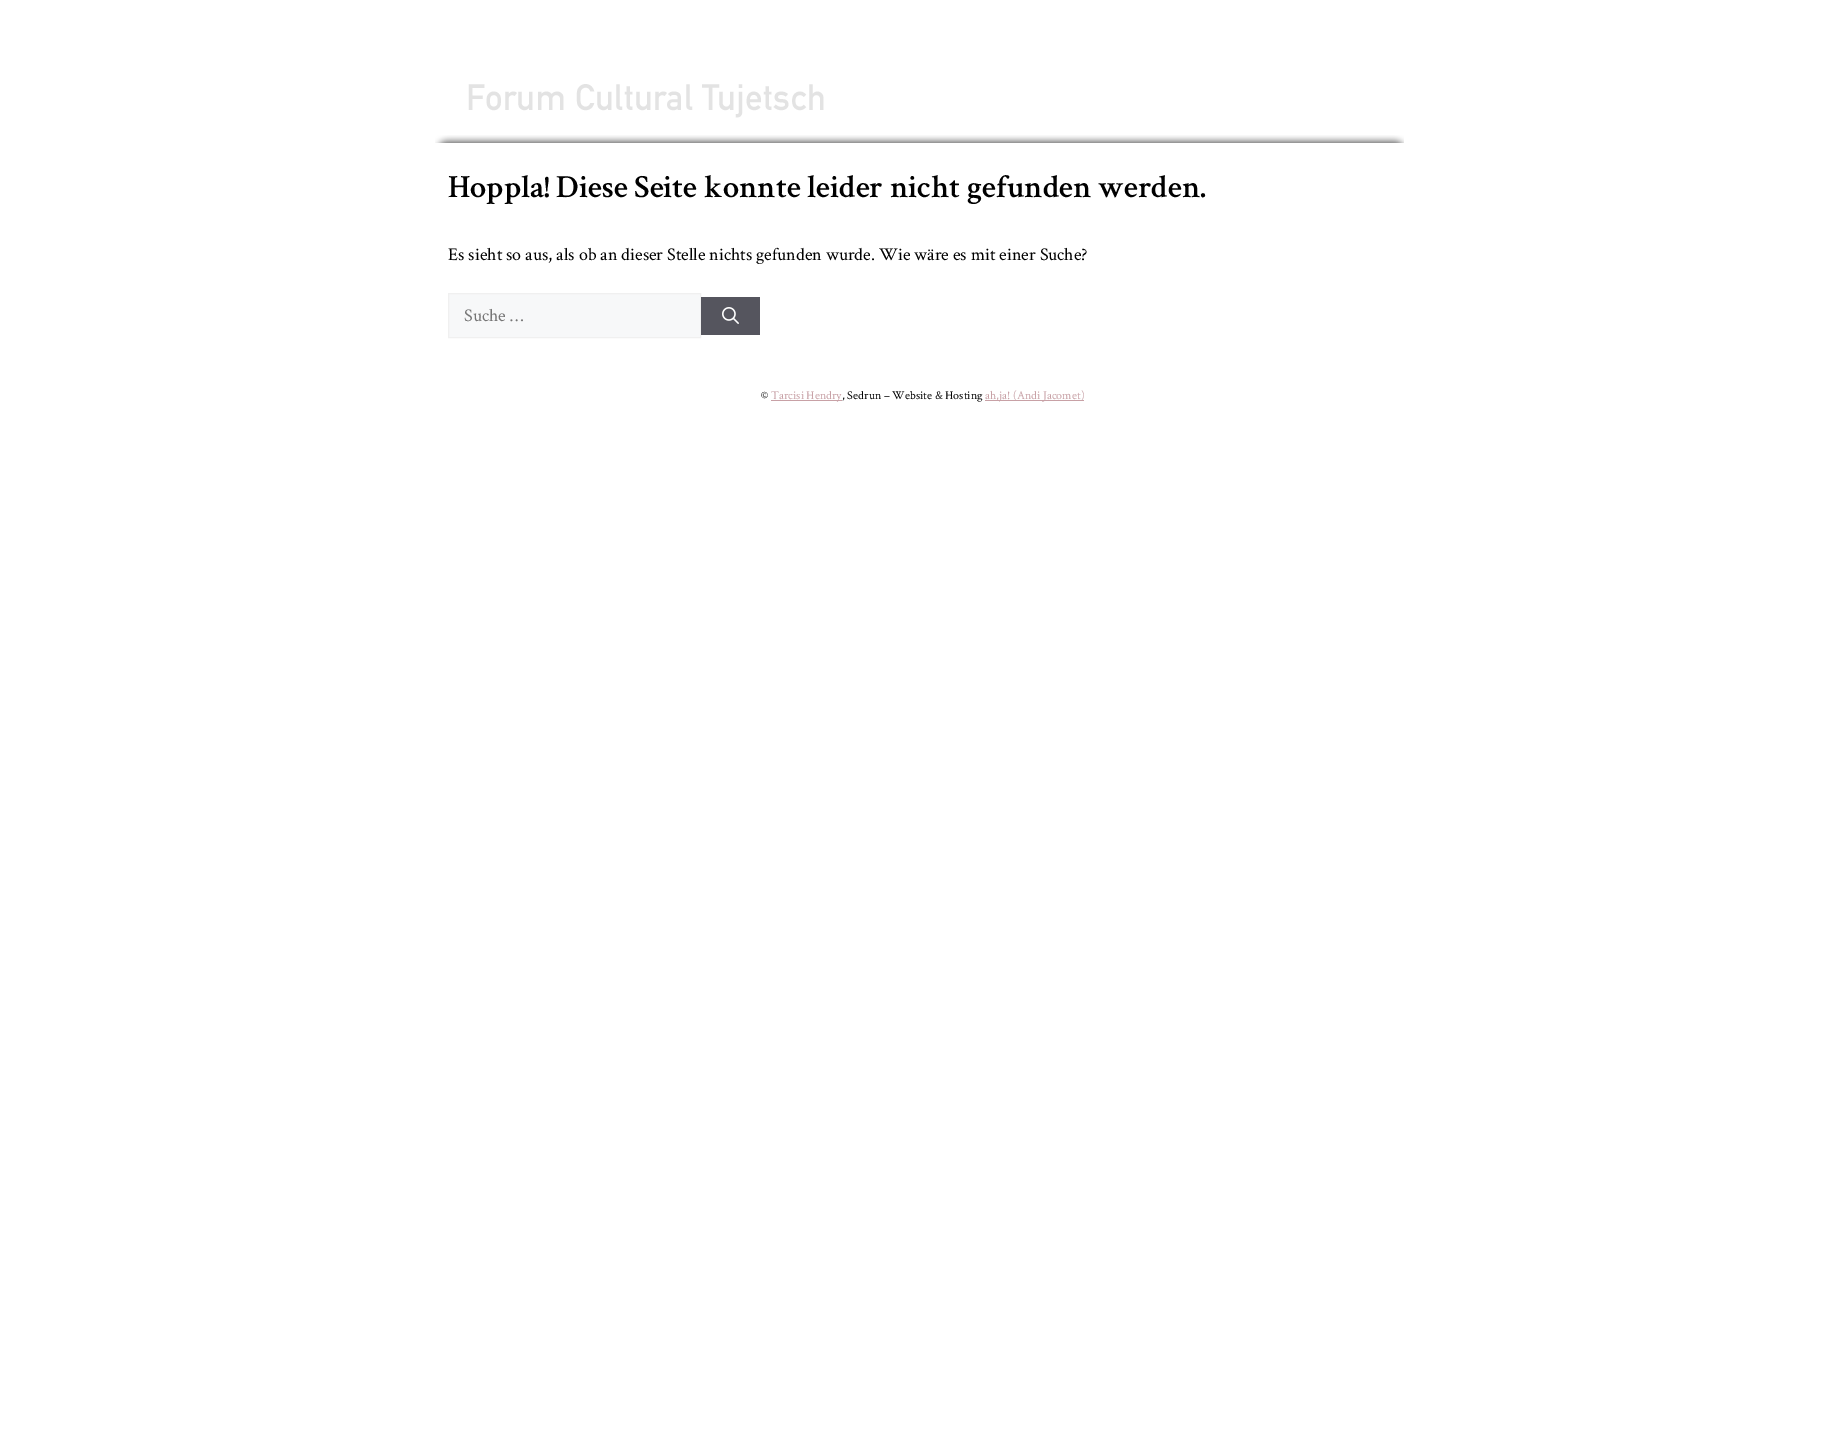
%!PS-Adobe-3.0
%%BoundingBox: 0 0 1845 1446
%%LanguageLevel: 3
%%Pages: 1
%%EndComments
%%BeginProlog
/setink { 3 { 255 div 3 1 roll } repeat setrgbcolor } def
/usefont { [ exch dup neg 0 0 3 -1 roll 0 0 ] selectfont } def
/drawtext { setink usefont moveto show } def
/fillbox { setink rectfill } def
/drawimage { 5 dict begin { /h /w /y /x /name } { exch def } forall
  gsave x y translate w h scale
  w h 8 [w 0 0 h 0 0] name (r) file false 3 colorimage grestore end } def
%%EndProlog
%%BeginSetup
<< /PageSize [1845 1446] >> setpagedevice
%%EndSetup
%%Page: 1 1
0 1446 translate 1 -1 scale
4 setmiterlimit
0 0 1845 1446 255 255 255 fillbox
(assets/img1.rgb) 435 135 969 8 drawimage
(assets/img2.rgb) 468 84 356 34 drawimage
(Hoppla! Diese Seite konnte leider nicht gefunden werden.) 448 197 /CrimsonText-SemiBold 32.4 0 0 0 drawtext
(Es sieht so aus, als ob an dieser Stelle nichts gefunden wurde. Wie wäre es mit einer Suche?) 448 260 /CrimsonText-Regular 18 0 0 0 drawtext
247 248 249 setink
448.5 293.5 moveto 700.5 293.5 lineto 700.5 337.5 lineto 448.5 337.5 lineto closepath gsave fill grestore
240 240 240 setink
stroke
(Suche …) 464 321 /CrimsonText-Regular 18 117 117 117 drawtext
701 297 59 38 85 85 94 fillbox
(assets/img3.rgb) 722 307 17 17 drawimage
(©) 761 399 /CrimsonText-Regular 12 0 0 0 drawtext
771 400 71 1 200 161 166 fillbox
(Tarcisi Hendry) 771 399 /CrimsonText-Regular 12 200 161 166 drawtext
(, Sedrun – Website & Hosting) 842 399 /CrimsonText-Regular 12 0 0 0 drawtext
985 400 99 1 200 161 166 fillbox
(ah,ja! \(Andi Jacomet\)) 985 399 /CrimsonText-Regular 12 200 161 166 drawtext
showpage
%%EOF
